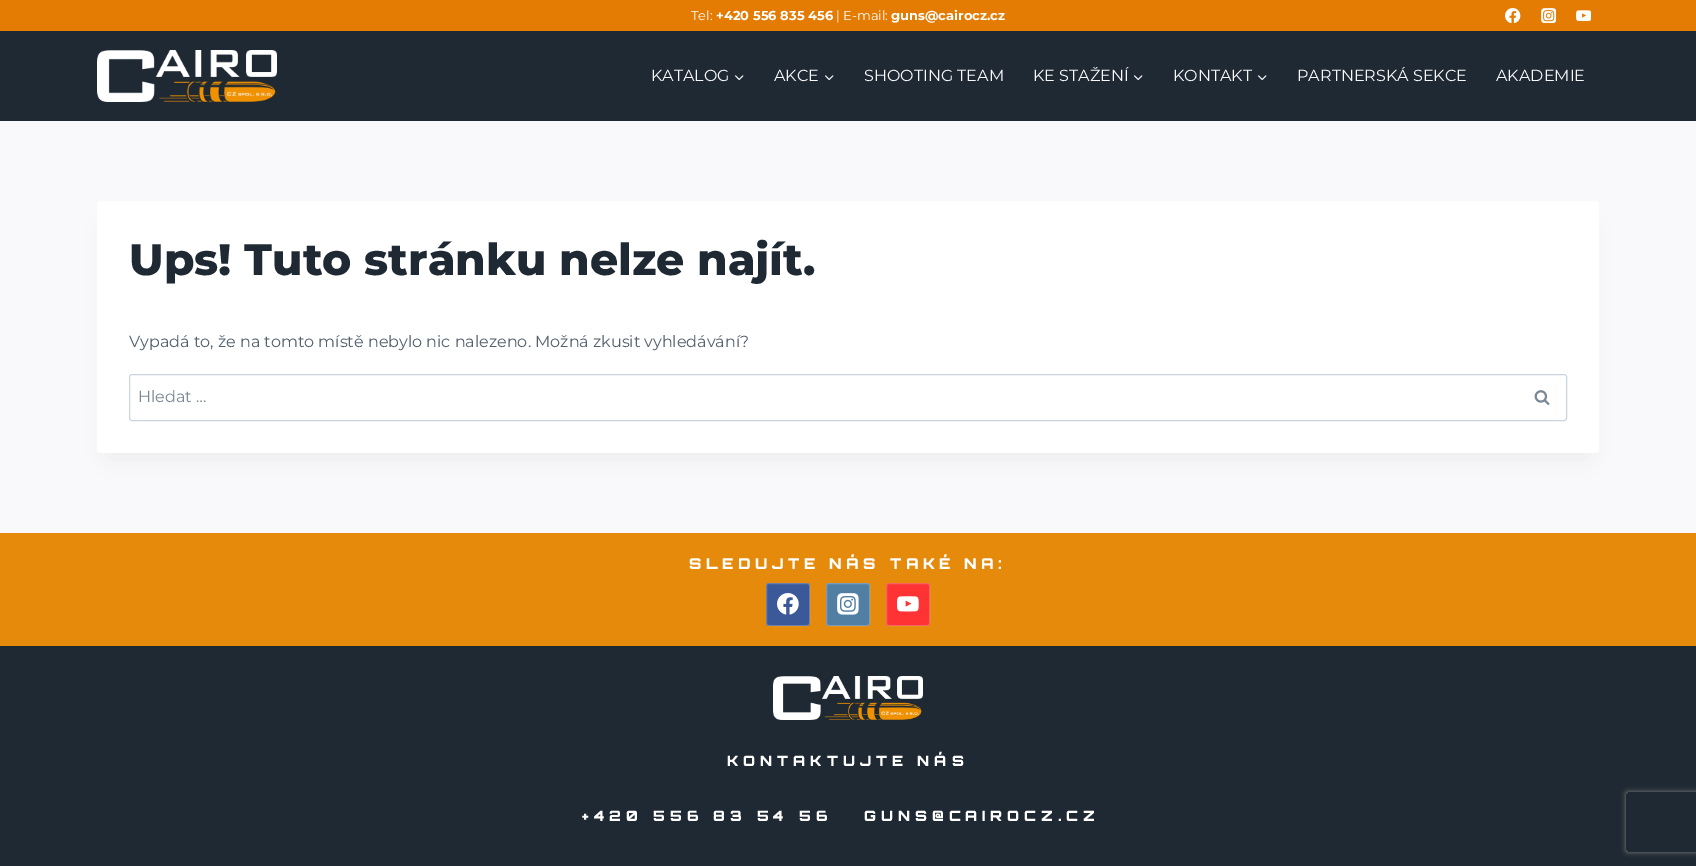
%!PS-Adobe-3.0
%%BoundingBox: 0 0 1696 866
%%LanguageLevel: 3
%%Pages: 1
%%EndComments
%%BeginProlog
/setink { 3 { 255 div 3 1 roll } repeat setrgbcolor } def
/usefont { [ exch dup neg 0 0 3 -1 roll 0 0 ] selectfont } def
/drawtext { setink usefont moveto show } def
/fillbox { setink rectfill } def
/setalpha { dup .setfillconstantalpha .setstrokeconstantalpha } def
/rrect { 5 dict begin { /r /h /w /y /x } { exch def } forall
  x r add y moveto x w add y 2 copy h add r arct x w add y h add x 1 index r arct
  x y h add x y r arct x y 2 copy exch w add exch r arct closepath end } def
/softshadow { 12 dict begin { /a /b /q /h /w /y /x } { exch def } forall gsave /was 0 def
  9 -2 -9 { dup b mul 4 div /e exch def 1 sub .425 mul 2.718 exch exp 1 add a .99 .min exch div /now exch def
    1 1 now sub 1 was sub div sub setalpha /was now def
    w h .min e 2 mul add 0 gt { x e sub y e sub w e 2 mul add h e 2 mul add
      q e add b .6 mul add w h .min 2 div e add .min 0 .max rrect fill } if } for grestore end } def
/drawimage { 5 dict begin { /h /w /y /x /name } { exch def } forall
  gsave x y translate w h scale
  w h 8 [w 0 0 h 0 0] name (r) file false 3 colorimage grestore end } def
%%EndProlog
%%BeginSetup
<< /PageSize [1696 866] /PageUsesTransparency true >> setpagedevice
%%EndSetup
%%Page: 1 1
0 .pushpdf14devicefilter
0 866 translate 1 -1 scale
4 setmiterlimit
0 0 1696 866 249 249 251 fillbox
0 31 1696 90 31 41 51 fillbox
0 0 1696 31 228 123 2 fillbox
(Tel:) 691 20 /Montserrat-Regular 13 255 255 255 drawtext
(+420 556 835 456) 716 20 /Montserrat-Bold 13 255 255 255 drawtext
(| E-mail:) 836 20 /Montserrat-Regular 13 255 255 255 drawtext
(guns@cairocz.cz) 891 20 /Montserrat-Bold 13 255 255 255 drawtext
(assets/img1.rgb) 1505 8 16 15 drawimage
(assets/img2.rgb) 1541 8 15 15 drawimage
(assets/img3.rgb) 1576 10 15 12 drawimage
(assets/img4.rgb) 97 50 180 52 drawimage
(KATALOG) 651 81 /Montserrat-Regular 16 249 249 251 drawtext
(assets/img5.rgb) 735 75 9 6 drawimage
(AKCE) 774 81 /Montserrat-Regular 16 249 249 251 drawtext
(assets/img5.rgb) 825 75 9 6 drawimage
(SHOOTING TEAM) 864 81 /Montserrat-Regular 16 249 249 251 drawtext
(KE STAŽENÍ) 1033 81 /Montserrat-Regular 16 249 249 251 drawtext
(assets/img5.rgb) 1134 75 9 6 drawimage
(KONTAKT) 1173 81 /Montserrat-Regular 16 249 249 251 drawtext
(assets/img5.rgb) 1258 75 9 6 drawimage
(PARTNERSKÁ SEKCE) 1297 81 /Montserrat-Regular 16 249 249 251 drawtext
(AKADEMIE) 1496 81 /Montserrat-Regular 16 249 249 251 drawtext
0 0 0 setink
107 226 1482 232 0 12.5 0.05 softshadow
255 255 255 setink
97 201 1502 252 4 rrect fill
(Ups! Tuto stránku nelze najít.) 129 275 /Montserrat-ExtraBold 44 31 41 51 drawtext
(Vypadá to, že na tomto místě nebylo nic nalezeno. Možná zkusit vyhledávání?) 129 347 /Montserrat-Regular 16 82 96 109 drawtext
203 213 224 setink
129.5 374.5 1437 46 2.5 rrect stroke
(Hledat …) 138 402 /Montserrat-Regular 16 123 135 148 drawtext
(assets/img6.rgb) 1534 390 16 15 drawimage
0 646 1696 220 31 41 51 fillbox
0 533 1696 113 229 138 10 fillbox
/Orbitron-Black 15 usefont
255 255 255 setink
689 569 moveto 4.5 0 (SLEDUJTE NÁS TAKÉ NA:) ashow
59 89 152 setink
766 583 44 43 3 rrect fill
0.25 setalpha
237 242 247 setink
766.5 583.5 43 42 2.5 rrect stroke
1 setalpha
(assets/img7.rgb) 777 593 22 22 drawimage
81 127 164 setink
826 583 44 43 3 rrect fill
0.25 setalpha
237 242 247 setink
826.5 583.5 43 42 2.5 rrect stroke
1 setalpha
(assets/img8.rgb) 837 593 22 22 drawimage
255 51 51 setink
886 583 44 43 3 rrect fill
0.25 setalpha
237 242 247 setink
886.5 583.5 43 42 2.5 rrect stroke
1 setalpha
(assets/img9.rgb) 897 596 22 16 drawimage
(assets/img10.rgb) 773 676 150 44 drawimage
/Orbitron-Black 14.4 usefont
255 255 255 setink
727 766 moveto 5 0 (KONTAKTUJTE NÁS) ashow
582 821 moveto 5 0 (+420 556 83 54 56) ashow
864 821 moveto 5 0 (GUNS@CAIROCZ.CZ) ashow
gsave
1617 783 moveto 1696 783 lineto 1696 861 lineto 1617 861 lineto closepath 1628 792 moveto 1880 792 lineto 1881 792 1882 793 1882 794 curveto 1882 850 lineto 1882 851 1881 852 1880 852 curveto 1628 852 lineto 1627 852 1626 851 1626 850 curveto 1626 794 lineto 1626 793 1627 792 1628 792 curveto closepath eoclip newpath
128 128 128 setink
1626 792 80 60 2 2.5 1 softshadow
grestore
.poppdf14devicefilter showpage
%%EOF
